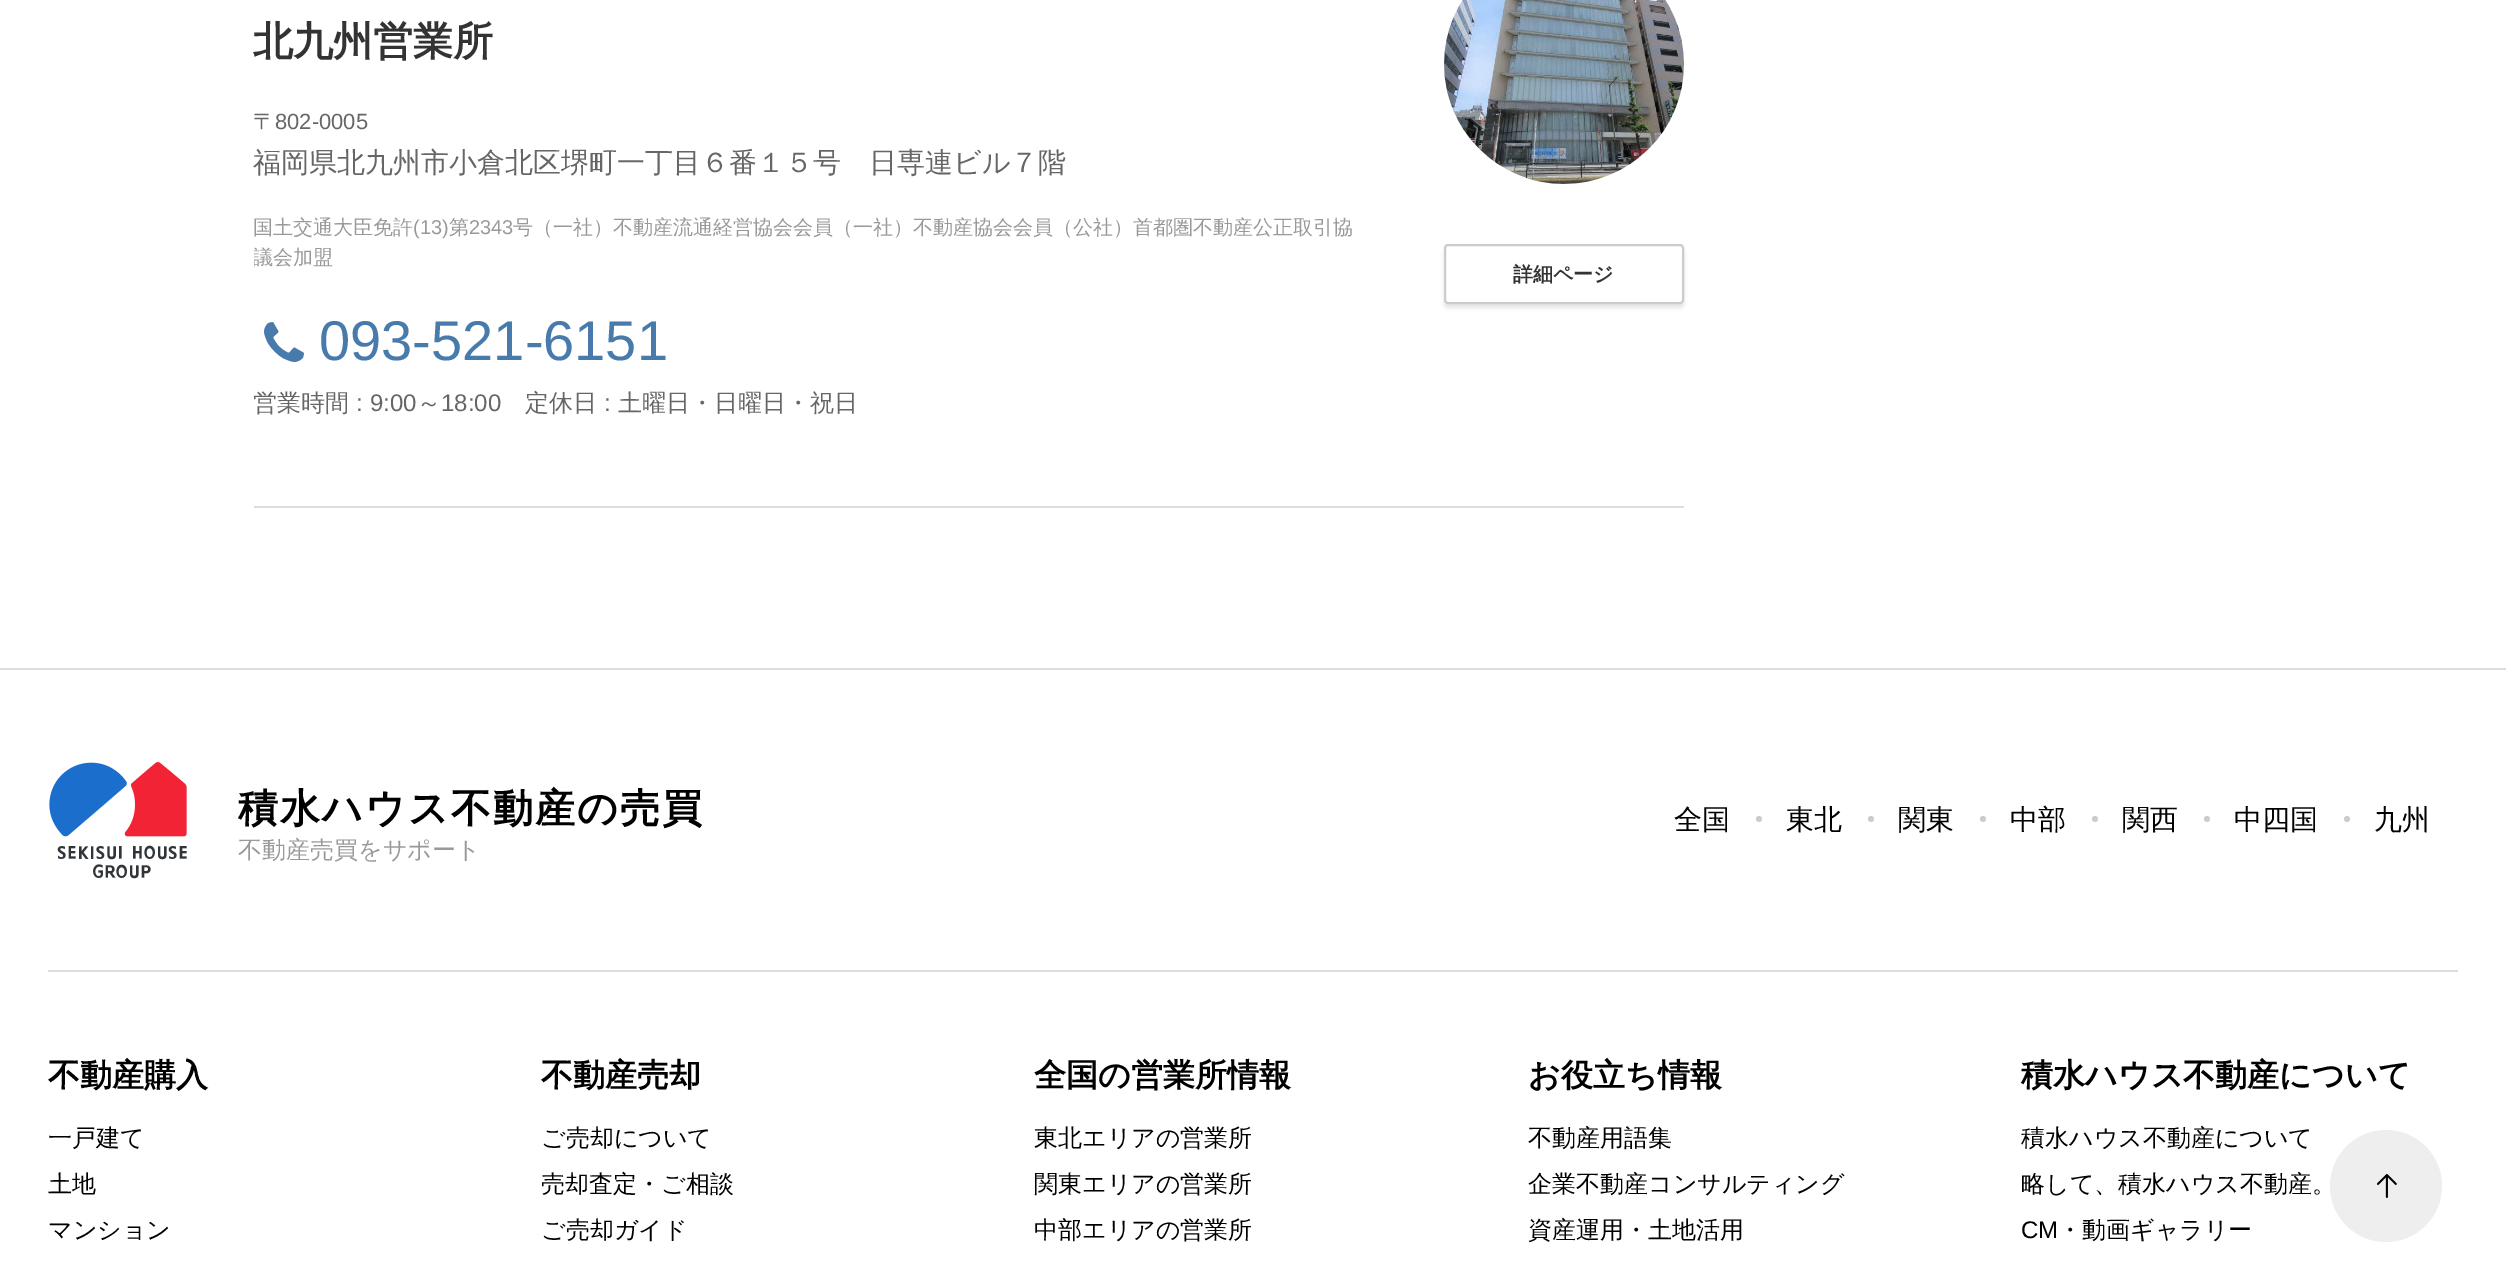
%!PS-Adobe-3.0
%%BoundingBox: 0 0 2506 1273
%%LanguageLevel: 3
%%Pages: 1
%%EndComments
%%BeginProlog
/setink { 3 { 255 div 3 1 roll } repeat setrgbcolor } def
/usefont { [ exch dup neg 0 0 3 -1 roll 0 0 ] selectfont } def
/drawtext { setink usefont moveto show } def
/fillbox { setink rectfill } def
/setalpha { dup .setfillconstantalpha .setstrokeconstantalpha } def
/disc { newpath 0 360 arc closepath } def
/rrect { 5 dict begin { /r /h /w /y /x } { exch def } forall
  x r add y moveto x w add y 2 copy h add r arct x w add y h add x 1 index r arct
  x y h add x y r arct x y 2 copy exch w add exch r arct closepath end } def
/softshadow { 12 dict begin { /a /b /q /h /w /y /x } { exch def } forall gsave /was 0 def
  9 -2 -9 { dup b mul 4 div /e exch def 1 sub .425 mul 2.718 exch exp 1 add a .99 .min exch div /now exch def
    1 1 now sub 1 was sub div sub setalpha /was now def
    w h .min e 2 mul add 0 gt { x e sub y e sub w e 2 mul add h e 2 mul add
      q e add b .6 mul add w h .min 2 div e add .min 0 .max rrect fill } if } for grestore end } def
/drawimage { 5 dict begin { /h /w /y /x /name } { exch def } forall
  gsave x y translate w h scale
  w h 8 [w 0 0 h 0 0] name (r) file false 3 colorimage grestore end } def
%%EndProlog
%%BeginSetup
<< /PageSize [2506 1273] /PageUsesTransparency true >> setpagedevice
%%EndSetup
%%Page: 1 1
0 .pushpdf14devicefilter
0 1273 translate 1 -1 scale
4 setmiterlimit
0 0 2506 1273 255 255 255 fillbox
254 506 1430 2 221 221 221 fillbox
(北九州営業所) 253 55 /WenQuanYiZenHei-Bold 40 51 51 51 drawtext
(〒) 253 129 /WenQuanYiZenHei-Medium 22 102 102 102 drawtext
(802-0005) 275 129 /LiberationSans-Regular 22 102 102 102 drawtext
(福岡県北九州市小倉北区堺町一丁目６番１５号　日専連ビル７階) 253 172 /WenQuanYiZenHei-Medium 28 102 102 102 drawtext
(国土交通大臣免許) 253 234 /WenQuanYiZenHei-Medium 20 153 153 153 drawtext
(\(13\)) 413 234 /LiberationSans-Regular 20 153 153 153 drawtext
(第) 449 234 /WenQuanYiZenHei-Medium 20 153 153 153 drawtext
(2343) 469 234 /LiberationSans-Regular 20 153 153 153 drawtext
(号（一社）不動産流通経営協会会員（一社）不動産協会会員（公社）首都圏不動産公正取引協) 513 234 /WenQuanYiZenHei-Medium 20 153 153 153 drawtext
gsave
254 212 1110 214 rectclip
(議会加盟) 253 264 /WenQuanYiZenHei-Medium 20 153 153 153 drawtext
grestore
(assets/img1.rgb) 264 322 40 40 drawimage
(093-521-6151) 319 360 /LiberationSans-Regular 56 72 122 171 drawtext
gsave
254 390 628 28 rectclip
(営業時間) 253 411 /WenQuanYiZenHei-Medium 24 102 102 102 drawtext
grestore
(:) 356 411 /LiberationSans-Regular 24 102 102 102 drawtext
(9:00) 370 411 /LiberationSans-Regular 24 102 102 102 drawtext
(～) 417 411 /WenQuanYiZenHei-Medium 24 102 102 102 drawtext
(18:00) 441 411 /LiberationSans-Regular 24 102 102 102 drawtext
(定休日) 525 411 /WenQuanYiZenHei-Medium 24 102 102 102 drawtext
(:) 604 411 /LiberationSans-Regular 24 102 102 102 drawtext
(土曜日・日曜日・祝日) 618 411 /WenQuanYiZenHei-Medium 24 102 102 102 drawtext
(assets/img2.rgb) 1444 0 240 184 drawimage
0 0 0 setink
1444 248 240 60 4 2 0.1 softshadow
255 255 255 setink
1445 245 238 58 3 rrect gsave fill grestore
204 204 204 setink
2 setlinewidth
stroke
(詳細ページ) 1513 281 /WenQuanYiZenHei-Bold 20 51 51 51 drawtext
0 668 2506 2 221 221 221 fillbox
48 970 2410 2 221 221 221 fillbox
(assets/img3.rgb) 49 762 138 117 drawimage
/WenQuanYiZenHei-Bold 40 usefont
0 0 0 setink
238 822 moveto 2 0 (積水ハウス不動産の売買) ashow
(不動産売買をサポート) 238 858 /WenQuanYiZenHei-Medium 24 153 153 153 drawtext
(全国) 1674 829 /WenQuanYiZenHei-Medium 28 0 0 0 drawtext
204 204 204 setink
1759 819 3 disc fill
(東北) 1786 829 /WenQuanYiZenHei-Medium 28 0 0 0 drawtext
204 204 204 setink
1871 819 3 disc fill
(関東) 1898 829 /WenQuanYiZenHei-Medium 28 0 0 0 drawtext
204 204 204 setink
1983 819 3 disc fill
(中部) 2010 829 /WenQuanYiZenHei-Medium 28 0 0 0 drawtext
204 204 204 setink
2095 819 3 disc fill
(関西) 2122 829 /WenQuanYiZenHei-Medium 28 0 0 0 drawtext
204 204 204 setink
2207 819 3 disc fill
(中四国) 2234 829 /WenQuanYiZenHei-Medium 28 0 0 0 drawtext
204 204 204 setink
2347 819 3 disc fill
(九州) 2374 829 /WenQuanYiZenHei-Medium 28 0 0 0 drawtext
(不動産購入) 48 1086 /WenQuanYiZenHei-Bold 32 0 0 0 drawtext
(一戸建て) 48 1146 /WenQuanYiZenHei-Medium 24 0 0 0 drawtext
(土地) 48 1192 /WenQuanYiZenHei-Medium 24 0 0 0 drawtext
(マンション) 48 1238 /WenQuanYiZenHei-Medium 24 0 0 0 drawtext
(不動産売却) 541 1086 /WenQuanYiZenHei-Bold 32 0 0 0 drawtext
(ご売却について) 541 1146 /WenQuanYiZenHei-Medium 24 0 0 0 drawtext
(売却査定・ご相談) 541 1192 /WenQuanYiZenHei-Medium 24 0 0 0 drawtext
(ご売却ガイド) 541 1238 /WenQuanYiZenHei-Medium 24 0 0 0 drawtext
(全国の営業所情報) 1034 1086 /WenQuanYiZenHei-Bold 32 0 0 0 drawtext
(東北エリアの営業所) 1034 1146 /WenQuanYiZenHei-Medium 24 0 0 0 drawtext
(関東エリアの営業所) 1034 1192 /WenQuanYiZenHei-Medium 24 0 0 0 drawtext
(中部エリアの営業所) 1034 1238 /WenQuanYiZenHei-Medium 24 0 0 0 drawtext
(お役立ち情報) 1528 1086 /WenQuanYiZenHei-Bold 32 0 0 0 drawtext
(不動産用語集) 1528 1146 /WenQuanYiZenHei-Medium 24 0 0 0 drawtext
(企業不動産コンサルティング) 1528 1192 /WenQuanYiZenHei-Medium 24 0 0 0 drawtext
(資産運用・土地活用) 1528 1238 /WenQuanYiZenHei-Medium 24 0 0 0 drawtext
(積水ハウス不動産について) 2021 1086 /WenQuanYiZenHei-Bold 32 0 0 0 drawtext
(積水ハウス不動産について) 2021 1146 /WenQuanYiZenHei-Medium 24 0 0 0 drawtext
(略して、積水ハウス不動産。) 2021 1192 /WenQuanYiZenHei-Medium 24 0 0 0 drawtext
(CM) 2021 1238 /LiberationSans-Regular 24 0 0 0 drawtext
(・動画ギャラリー) 2058 1238 /WenQuanYiZenHei-Medium 24 0 0 0 drawtext
238 238 238 setink
2386 1186 56 disc fill
(assets/img4.rgb) 2377 1174 20 24 drawimage
.poppdf14devicefilter showpage
%%EOF
